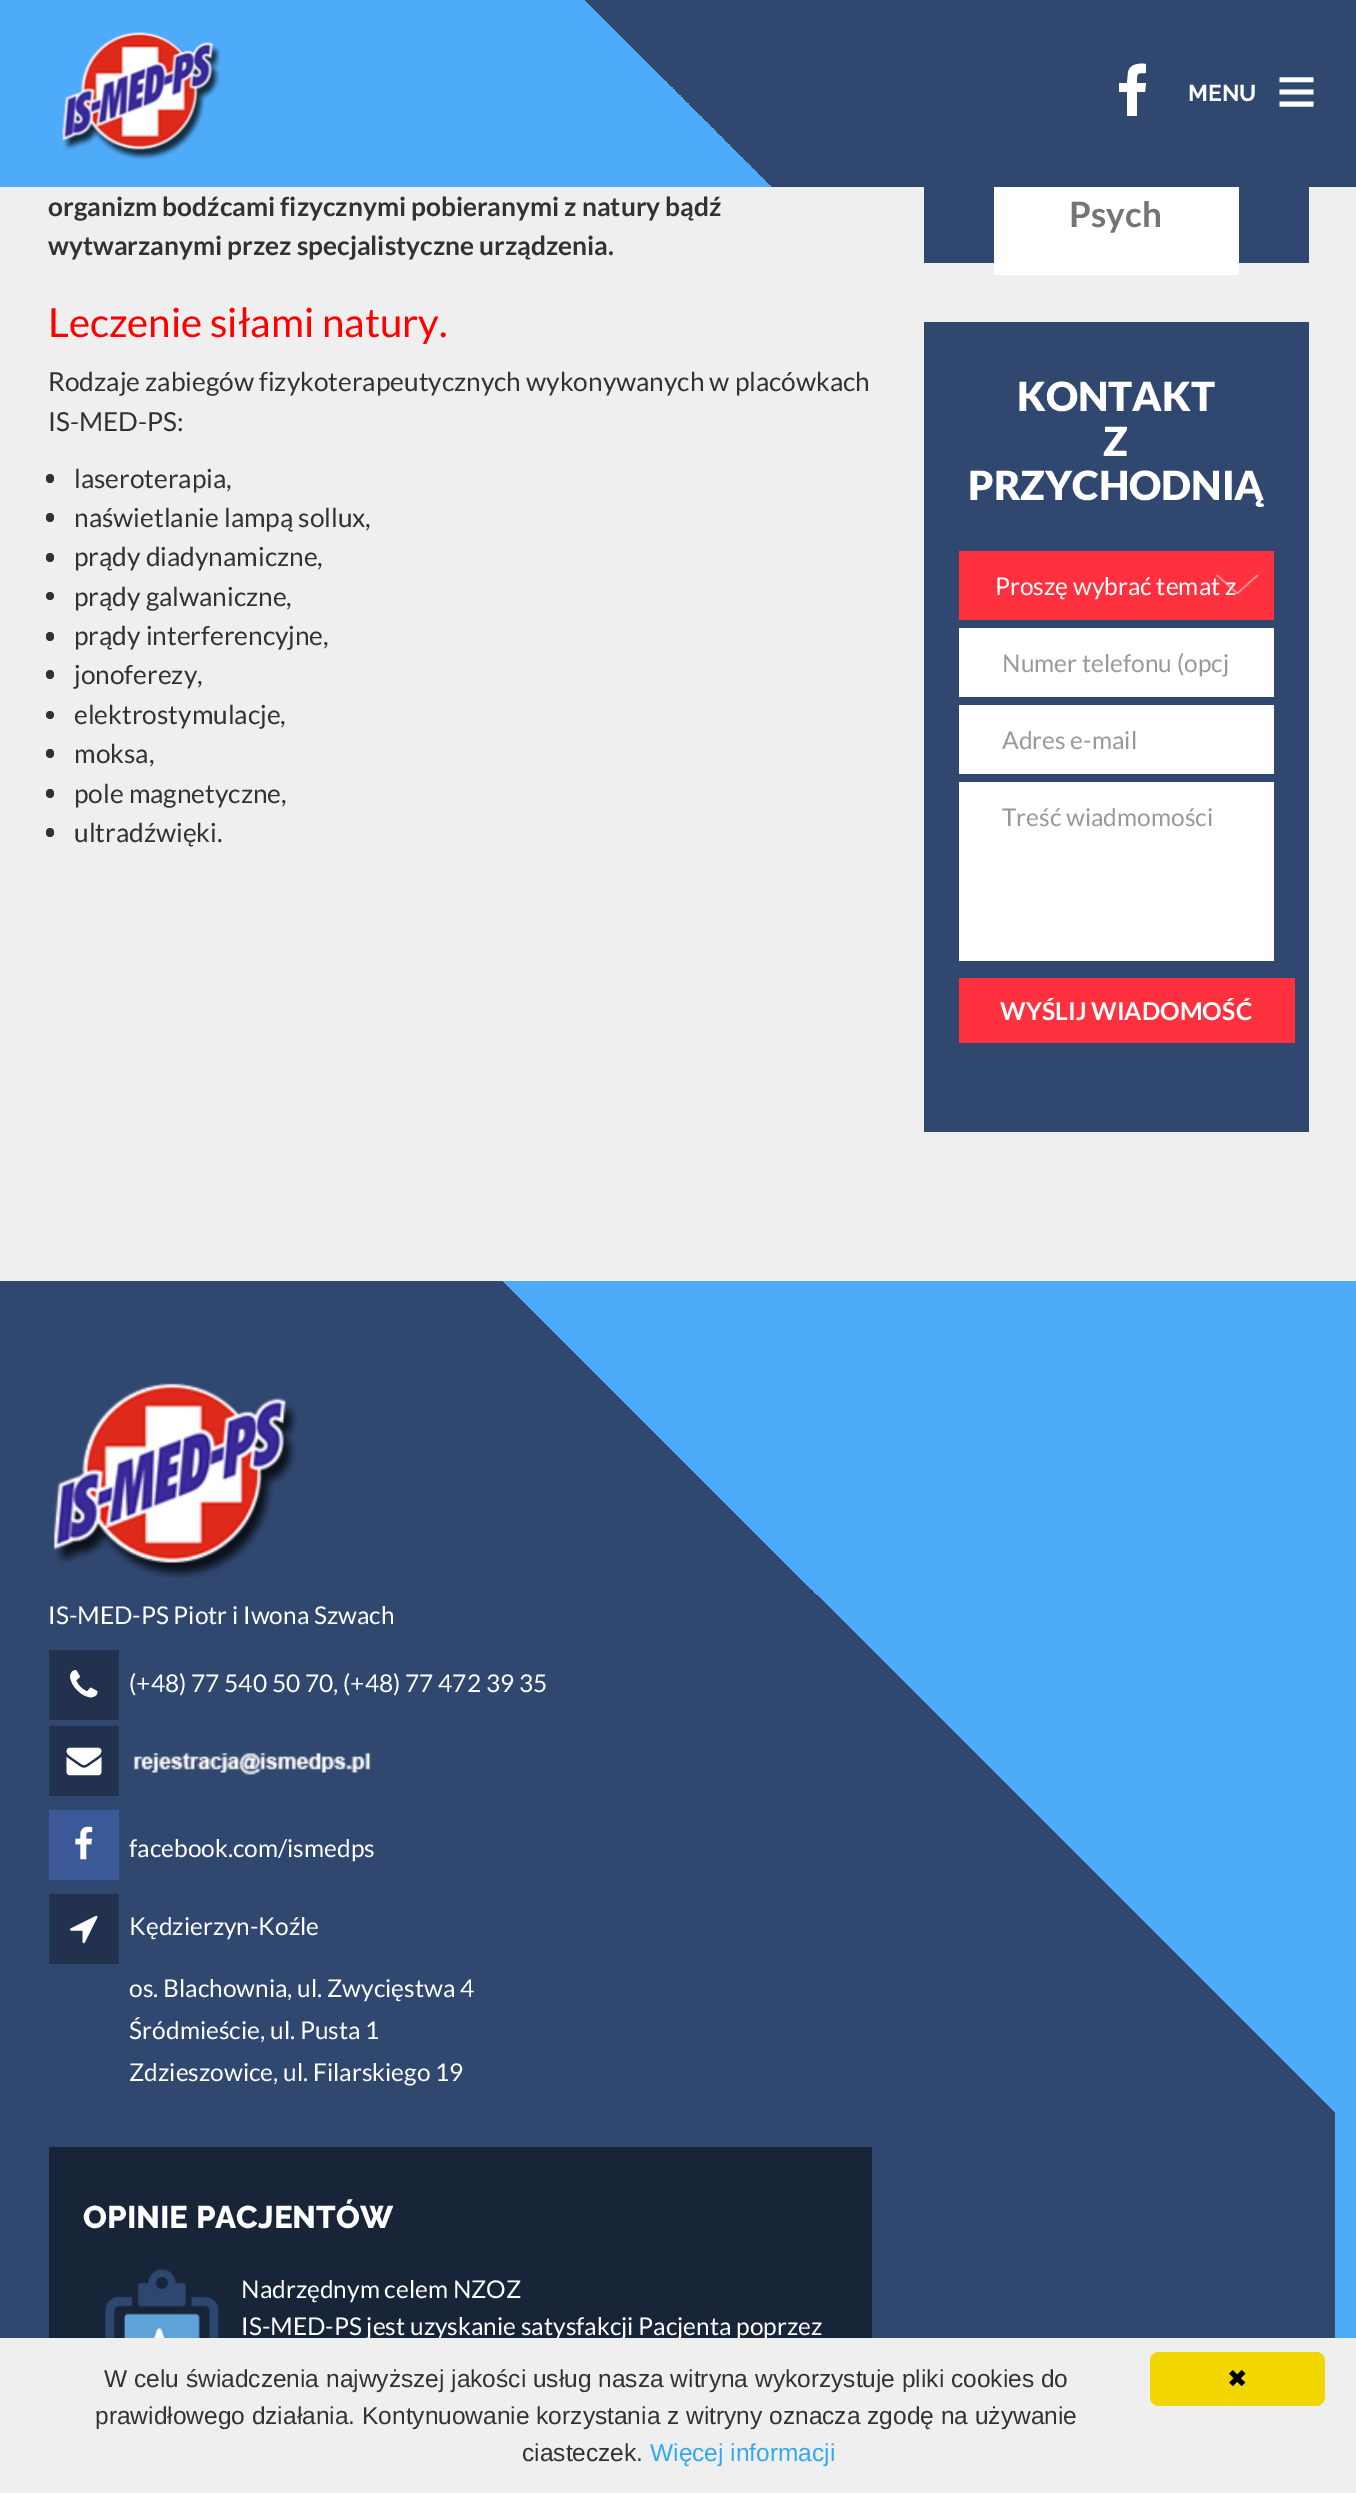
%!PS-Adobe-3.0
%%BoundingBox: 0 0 1356 2493
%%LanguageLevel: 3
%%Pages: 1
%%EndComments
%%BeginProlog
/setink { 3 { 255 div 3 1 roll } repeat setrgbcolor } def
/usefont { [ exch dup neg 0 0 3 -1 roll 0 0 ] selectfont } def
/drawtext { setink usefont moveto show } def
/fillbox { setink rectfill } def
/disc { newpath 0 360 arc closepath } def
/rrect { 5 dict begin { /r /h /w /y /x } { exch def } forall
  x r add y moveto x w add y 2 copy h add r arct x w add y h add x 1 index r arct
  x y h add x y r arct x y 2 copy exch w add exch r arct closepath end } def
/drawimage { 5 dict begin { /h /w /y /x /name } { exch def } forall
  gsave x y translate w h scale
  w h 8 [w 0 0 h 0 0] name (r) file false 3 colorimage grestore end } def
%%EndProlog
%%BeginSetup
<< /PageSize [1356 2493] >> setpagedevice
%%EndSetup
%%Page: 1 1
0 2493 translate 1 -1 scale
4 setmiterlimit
0 0 1356 2493 239 239 239 fillbox
0 0 23 187 78 171 249 fillbox
1335 0 21 187 48 71 112 fillbox
gsave 23 0 moveto 1335 0 lineto 1335 187 lineto 23 187 lineto closepath clip newpath
<< /ShadingType 2 /ColorSpace /DeviceRGB /Coords [304 469 1054 -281] /Extend [true true] /Function << /FunctionType 3 /Domain [0 1] /Functions [<< /FunctionType 2 /Domain [0 1] /C0 [0.306 0.671 0.976] /C1 [0.306 0.671 0.976] /N 1 >> << /FunctionType 2 /Domain [0 1] /C0 [0.188 0.278 0.439] /C1 [0.188 0.278 0.439] /N 1 >>] /Bounds [0.5] /Encode [0 1 0 1] >> >> shfill grestore
(assets/img1.rgb) 62 32 159 128 drawimage
255 255 255 setink
1146 64 moveto 1146 73 lineto 1136 73 1137 73 1137 83 curveto 1146 83 lineto 1145 92 lineto 1137 92 lineto 1137 116 lineto 1127 116 lineto 1127 92 lineto 1119 92 lineto 1119 83 lineto 1127 83 lineto 1128 73 lineto 1129 64 1139 63 1146 64 curveto closepath fill
(MENU) 1188 101 /Raleway-Bold 23 255 255 255 drawtext
(≡) 1276 115 /LiberationSans-Bold 70 255 255 255 drawtext
(organizm bodźcami fizycznymi pobieranymi z natury bądź) 48 216 /Lato-Bold 26.25 50 50 50 drawtext
(wytwarzanymi przez specjalistyczne urządzenia.) 48 255 /Lato-Bold 26.25 50 50 50 drawtext
(Leczenie siłami natury.) 48 337 /Lato-Regular 40.25 255 0 0 drawtext
(Rodzaje zabiegów fizykoterapeutycznych wykonywanych w placówkach) 48 391 /Lato-Regular 26.25 50 50 50 drawtext
(IS-MED-PS:) 48 431 /Lato-Regular 26.25 50 50 50 drawtext
46 474 8 9 4 rrect fill
(laseroterapia,) 74 488 /Lato-Regular 26.25 50 50 50 drawtext
46 513 8 9 4 rrect fill
(naświetlanie lampą sollux,) 74 527 /Lato-Regular 26.25 50 50 50 drawtext
46 553 8 9 4 rrect fill
(prądy diadynamiczne,) 74 566 /Lato-Regular 26.25 50 50 50 drawtext
50 596 4 disc fill
(prądy galwaniczne,) 74 606 /Lato-Regular 26.25 50 50 50 drawtext
46 632 8 9 4 rrect fill
(prądy interferencyjne,) 74 645 /Lato-Regular 26.25 50 50 50 drawtext
46 670 8 9 4 rrect fill
(jonoferezy,) 74 684 /Lato-Regular 26.25 50 50 50 drawtext
50 715 4 disc fill
(elektrostymulacje,) 74 724 /Lato-Regular 26.25 50 50 50 drawtext
46 749 8 9 4 rrect fill
(moksa,) 74 763 /Lato-Regular 26.25 50 50 50 drawtext
46 789 8 9 4 rrect fill
(pole magnetyczne,) 74 803 /Lato-Regular 26.25 50 50 50 drawtext
46 828 8 9 4 rrect fill
(ultradźwięki.) 74 842 /Lato-Regular 26.25 50 50 50 drawtext
924 187 385 76 48 71 112 fillbox
994 187 245 88 255 255 255 fillbox
(Psych) 1069 227 /Lato-Bold 35 117 117 117 drawtext
924 322 385 810 48 71 112 fillbox
(KONTAKT) 1017 411 /Lato-Black 40.25 255 255 255 drawtext
(Z) 1103 456 /Lato-Black 40.25 255 255 255 drawtext
(PRZYCHODNIĄ) 968 500 /Lato-Black 40.25 255 255 255 drawtext
959 551 315 69 255 49 62 fillbox
(assets/img2.rgb) 1216 573 43 22 drawimage
(Proszę wybrać temat z) 995 595 /Lato-Regular 24.5 255 255 255 drawtext
959 628 315 69 255 255 255 fillbox
(Numer telefonu \(opcj) 1002 672 /Lato-Regular 24.5 153 153 153 drawtext
959 705 315 69 255 255 255 fillbox
(Adres e-mail) 1002 749 /Lato-Regular 24.5 153 153 153 drawtext
959 782 315 179 255 255 255 fillbox
(Treść wiadmomości) 1002 826 /Lato-Regular 24.5 153 153 153 drawtext
959 978 336 65 255 49 62 fillbox
(WYŚLIJ WIADOMOŚĆ) 1000 1020 /Lato-Bold 24.5 255 255 255 drawtext
1335 1281 21 1057 78 171 249 fillbox
0 1281 23 1057 48 71 112 fillbox
gsave 23 1281 moveto 1335 1281 lineto 1335 2338 lineto 23 2338 lineto closepath clip newpath
<< /ShadingType 2 /ColorSpace /DeviceRGB /Coords [-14 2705 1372 1318] /Extend [true true] /Function << /FunctionType 3 /Domain [0 1] /Functions [<< /FunctionType 2 /Domain [0 1] /C0 [0.188 0.278 0.439] /C1 [0.188 0.278 0.439] /N 1 >> << /FunctionType 2 /Domain [0 1] /C0 [0.306 0.671 0.976] /C1 [0.306 0.671 0.976] /N 1 >>] /Bounds [0.7] /Encode [0 1 0 1] >> >> shfill grestore
(assets/img3.rgb) 53 1383 244 195 drawimage
(IS-MED-PS Piotr i Iwona Szwach) 48 1624 /Lato-Regular 24.5 255 255 255 drawtext
49 1650 70 70 34 50 78 fillbox
(assets/img4.rgb) 70 1670 28 28 drawimage
(\(+48\) 77 540 50 70, \(+48\) 77 472 39 35) 129 1692 /Lato-Regular 24.5 255 255 255 drawtext
49 1726 70 70 34 50 78 fillbox
(assets/img5.rgb) 66 1747 36 29 drawimage
(assets/img6.rgb) 133 1752 239 23 drawimage
49 1810 70 70 59 89 152 fillbox
(assets/img7.rgb) 75 1826 18 34 drawimage
(facebook.com/ismedps) 129 1857 /Lato-Regular 24.5 255 255 255 drawtext
49 1894 70 70 34 50 78 fillbox
(assets/img8.rgb) 70 1915 28 29 drawimage
(Kędzierzyn-Koźle) 129 1935 /Lato-Regular 24.5 255 255 255 drawtext
(os. Blachownia, ul. Zwycięstwa 4) 129 1997 /Lato-Regular 24.5 255 255 255 drawtext
(Śródmieście, ul. Pusta 1) 129 2039 /Lato-Regular 24.5 255 255 255 drawtext
(Zdzieszowice, ul. Filarskiego 19) 129 2081 /Lato-Regular 24.5 255 255 255 drawtext
49 2147 823 191 24 36 56 fillbox
(OPINIE PACJENTÓW) 83 2228 /Raleway-ExtraBold 31.5 255 255 255 drawtext
(assets/img9.rgb) 105 2269 114 69 drawimage
(Nadrzędnym celem NZOZ) 241 2298 /Lato-Regular 24.5 255 255 255 drawtext
(IS-MED-PS jest uzyskanie satysfakcji Pacjenta poprzez) 241 2335 /Lato-Regular 24.5 255 255 255 drawtext
365 2338 402 2 238 238 238 fillbox
(W celu świadczenia najwyższej jakości usług nasza witryna wykorzystuje pliki cookies do) 104 2387 /LiberationSans-Regular 24.5 50 50 50 drawtext
(prawidłowego działania. Kontynuowanie korzystania z witryny oznacza zgodę na używanie) 95 2424 /LiberationSans-Regular 24.5 50 50 50 drawtext
(ciasteczek.) 522 2461 /LiberationSans-Regular 24.5 50 50 50 drawtext
(Więcej informacji) 650 2461 /LiberationSans-Regular 24.5 49 168 240 drawtext
241 214 0 setink
1150 2352 175 54 9 rrect fill
(✖) 1227 2387 /DejaVuSans-Regular 24.5 0 0 0 drawtext
showpage
%%EOF
